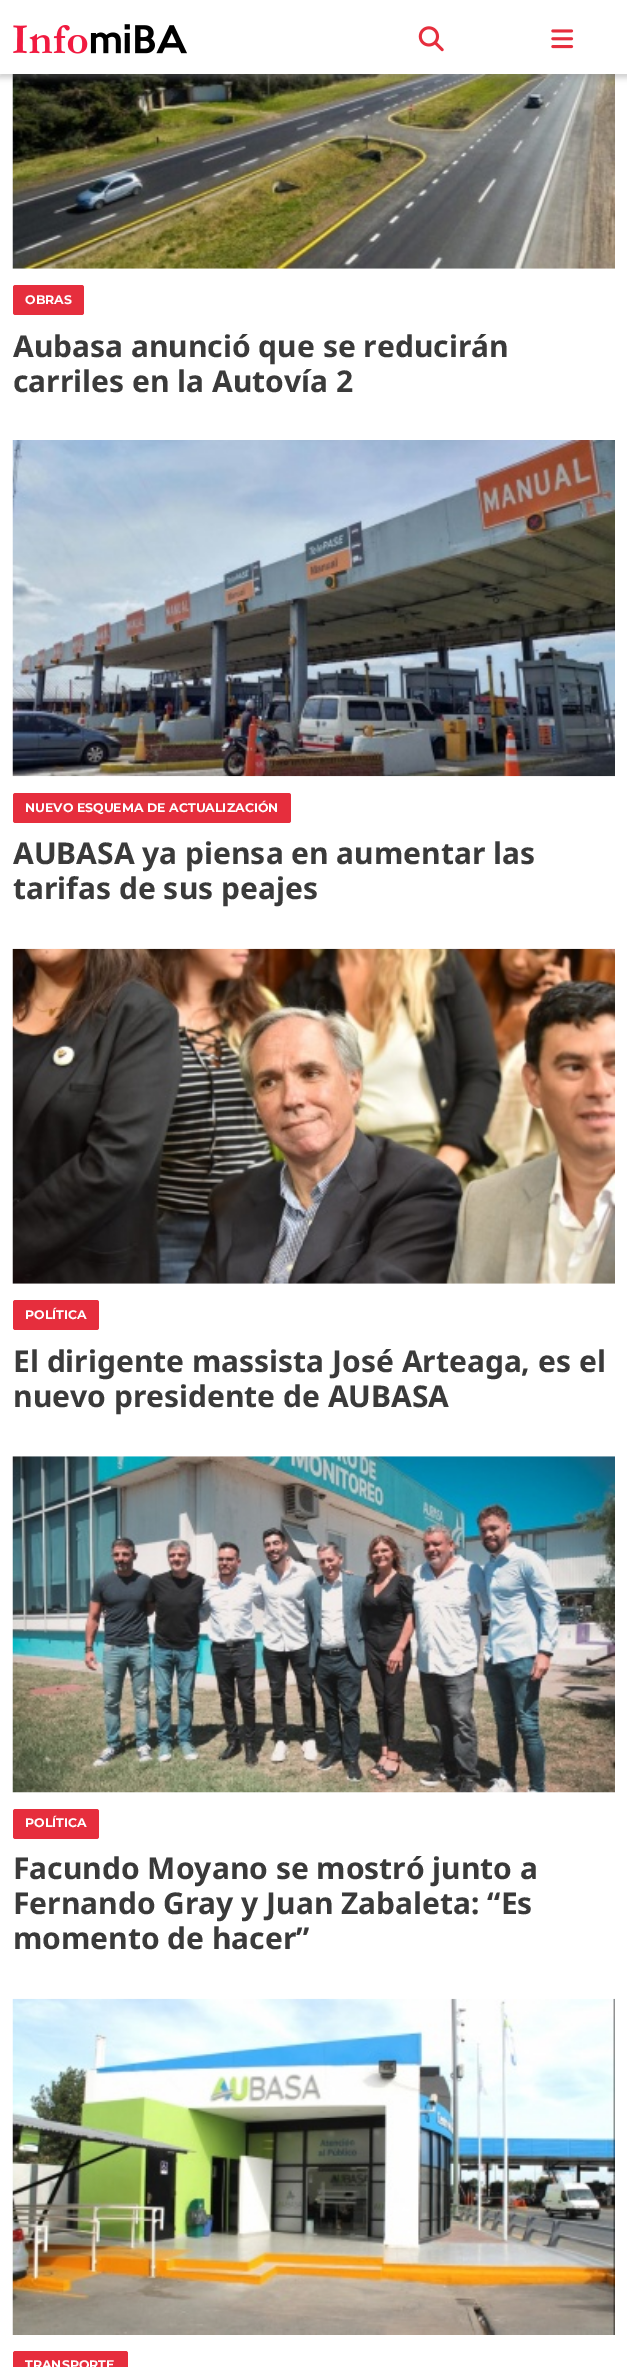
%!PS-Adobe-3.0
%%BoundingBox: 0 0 627 2367
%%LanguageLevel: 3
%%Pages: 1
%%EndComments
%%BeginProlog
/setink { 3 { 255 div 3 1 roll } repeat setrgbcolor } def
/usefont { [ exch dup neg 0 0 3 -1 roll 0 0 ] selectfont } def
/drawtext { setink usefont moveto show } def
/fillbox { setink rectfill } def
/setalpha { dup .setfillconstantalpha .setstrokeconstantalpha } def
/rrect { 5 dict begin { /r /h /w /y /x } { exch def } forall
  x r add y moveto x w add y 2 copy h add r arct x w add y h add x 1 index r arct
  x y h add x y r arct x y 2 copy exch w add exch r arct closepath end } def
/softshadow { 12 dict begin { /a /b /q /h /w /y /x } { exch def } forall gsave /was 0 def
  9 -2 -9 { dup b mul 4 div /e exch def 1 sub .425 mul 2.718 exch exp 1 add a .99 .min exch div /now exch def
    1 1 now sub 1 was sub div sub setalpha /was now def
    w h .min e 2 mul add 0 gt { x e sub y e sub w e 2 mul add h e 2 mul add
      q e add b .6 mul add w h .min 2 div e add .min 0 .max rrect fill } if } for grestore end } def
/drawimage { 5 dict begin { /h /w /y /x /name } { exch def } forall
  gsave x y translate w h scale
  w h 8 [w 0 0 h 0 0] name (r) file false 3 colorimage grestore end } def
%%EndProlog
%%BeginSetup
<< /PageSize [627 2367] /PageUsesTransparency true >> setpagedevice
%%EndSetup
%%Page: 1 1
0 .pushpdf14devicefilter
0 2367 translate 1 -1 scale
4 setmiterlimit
0 0 627 2367 255 255 255 fillbox
(assets/img4.rgb) 12 74 603 195 drawimage
132 132 132 setink
-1 -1 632 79 0 3 0.4 softshadow
0 0 627 74 255 255 255 fillbox
(assets/img1.rgb) 13 24 174 30 drawimage
(assets/img2.rgb) 418 26 26 26 drawimage
(assets/img3.rgb) 551 29 23 20 drawimage
230 46 61 setink
13 285 71 30 2.5 rrect fill
(OBRAS) 25 304 /Montserrat-Bold 12.5 255 255 255 drawtext
(Aubasa anunció que se reducirán) 13 357 /NotoSans-Bold 30 58 58 58 drawtext
(carriles en la Autovía 2) 13 392 /NotoSans-Bold 30 58 58 58 drawtext
(assets/img5.rgb) 12 440 603 337 drawimage
230 46 61 setink
13 793 278 30 2.5 rrect fill
(NUEVO ESQUEMA DE ACTUALIZACIÓN) 25 812 /Montserrat-Bold 12.5 255 255 255 drawtext
(AUBASA ya piensa en aumentar las) 13 864 /NotoSans-Bold 30 58 58 58 drawtext
(tarifas de sus peajes) 13 899 /NotoSans-Bold 30 58 58 58 drawtext
(assets/img6.rgb) 12 948 603 336 drawimage
230 46 61 setink
13 1300 86 30 2.5 rrect fill
(POLÍTICA) 25 1319 /Montserrat-Bold 12.5 255 255 255 drawtext
(El dirigente massista José Arteaga, es el) 13 1372 /NotoSans-Bold 30 58 58 58 drawtext
(nuevo presidente de AUBASA) 13 1407 /NotoSans-Bold 30 58 58 58 drawtext
(assets/img7.rgb) 12 1456 603 337 drawimage
230 46 61 setink
13 1809 86 30 2.5 rrect fill
(POLÍTICA) 25 1827 /Montserrat-Bold 12.5 255 255 255 drawtext
(Facundo Moyano se mostró junto a) 13 1879 /NotoSans-Bold 30 58 58 58 drawtext
(Fernando Gray y Juan Zabaleta: “Es) 13 1914 /NotoSans-Bold 30 58 58 58 drawtext
(momento de hacer”) 13 1949 /NotoSans-Bold 30 58 58 58 drawtext
(assets/img8.rgb) 12 1998 603 337 drawimage
230 46 61 setink
13 2351 115 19 2.5 rrect fill
(TRANSPORTE) 25 2369 /Montserrat-Bold 12.5 255 255 255 drawtext
.poppdf14devicefilter showpage
%%EOF
